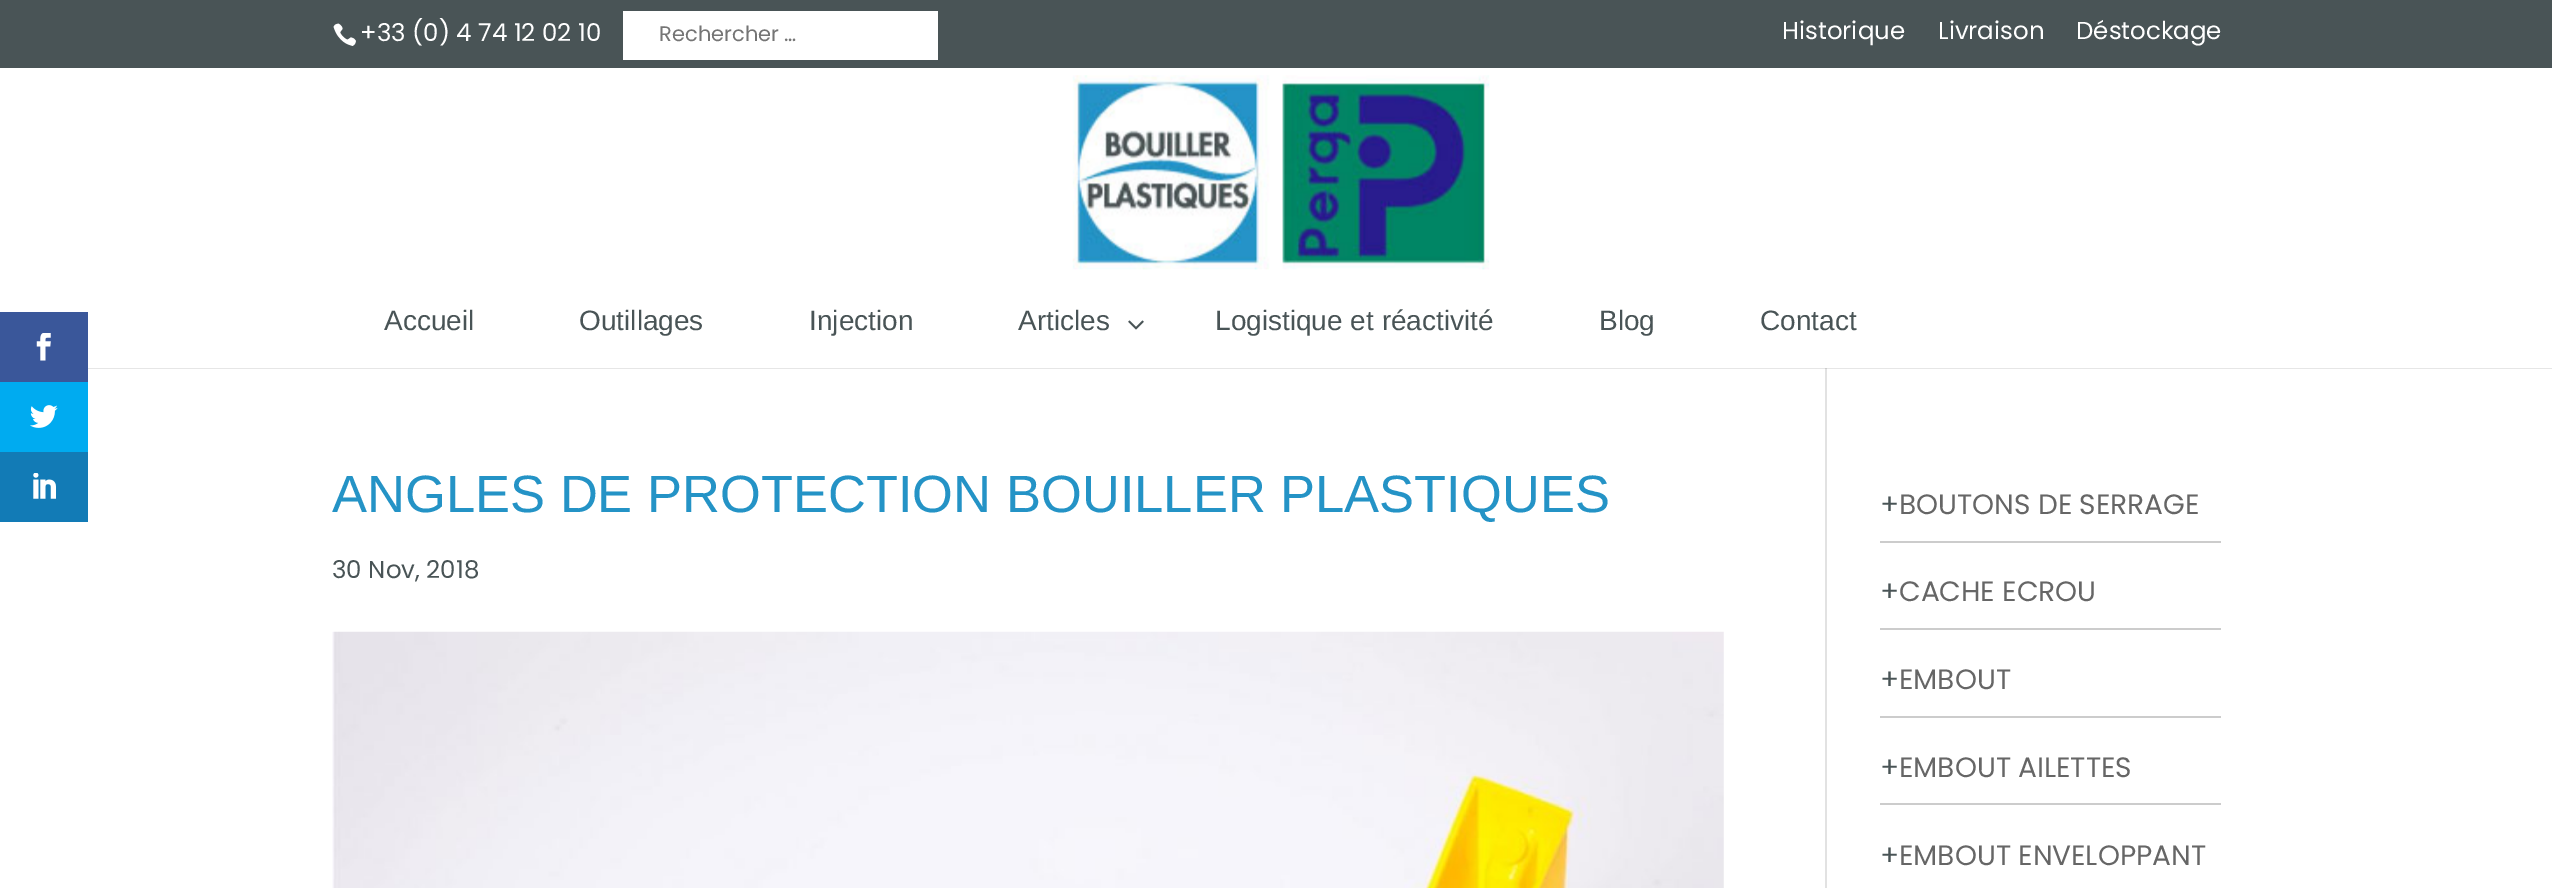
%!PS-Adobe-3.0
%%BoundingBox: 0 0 2552 888
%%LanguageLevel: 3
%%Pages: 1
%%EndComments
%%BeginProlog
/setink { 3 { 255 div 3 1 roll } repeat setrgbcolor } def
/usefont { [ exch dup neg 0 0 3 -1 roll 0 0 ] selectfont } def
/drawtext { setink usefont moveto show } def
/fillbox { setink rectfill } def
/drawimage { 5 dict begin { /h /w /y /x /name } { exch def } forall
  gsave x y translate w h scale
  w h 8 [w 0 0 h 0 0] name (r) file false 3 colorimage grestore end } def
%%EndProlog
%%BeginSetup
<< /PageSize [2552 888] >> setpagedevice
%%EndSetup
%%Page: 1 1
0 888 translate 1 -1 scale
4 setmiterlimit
0 0 2552 888 255 255 255 fillbox
88 368 2464 1 230 230 230 fillbox
0 312 88 70 58 87 154 fillbox
(assets/img1.rgb) 36 333 15 28 drawimage
0 382 88 70 0 171 240 fillbox
(assets/img2.rgb) 30 405 28 23 drawimage
0 452 88 70 18 123 182 fillbox
(assets/img3.rgb) 33 473 23 26 drawimage
0 0 2552 68 73 84 86 fillbox
(assets/img4.rgb) 333 23 23 23 drawimage
(+33 \(0\) 4 74 12 02 10) 360 41 /Poppins-Regular 24.5 255 255 255 drawtext
623 11 315 49 255 255 255 fillbox
(Rechercher …) 659 41 /Poppins-Regular 21 117 117 117 drawtext
(Historique) 1782 39 /Poppins-Regular 24.5 255 255 255 drawtext
(Livraison) 1938 39 /Poppins-Regular 24.5 255 255 255 drawtext
(Déstockage) 2076 39 /Poppins-Regular 24.5 255 255 255 drawtext
(assets/img5.rgb) 1072 75 418 195 drawimage
(Accueil) 384 330 /LiberationSans-Regular 28 73 84 86 drawtext
(Outillages) 579 330 /LiberationSans-Regular 28 73 84 86 drawtext
(Injection) 809 330 /LiberationSans-Regular 28 73 84 86 drawtext
(Articles) 1018 330 /LiberationSans-Regular 28 73 84 86 drawtext
(assets/img6.rgb) 1128 320 16 10 drawimage
(Logistique et réactivité) 1215 330 /LiberationSans-Regular 28 73 84 86 drawtext
(Blog) 1599 330 /LiberationSans-Regular 28 73 84 86 drawtext
(Contact) 1760 330 /LiberationSans-Regular 28 73 84 86 drawtext
1825 368 2 520 226 226 226 fillbox
1825 368 2 1 203 203 203 fillbox
(ANGLES DE PROTECTION BOUILLER PLASTIQUES) 332 512 /LiberationSans-Regular 52.5 36 147 198 drawtext
(30 Nov, 2018) 332 578 /Poppins-Regular 24.5 73 84 86 drawtext
(assets/img7.rgb) 332 631 1392 257 drawimage
1880 541 341 2 204 204 204 fillbox
(+) 1880 514 /Poppins-Regular 28 73 84 86 drawtext
(BOUTONS DE SERRAGE) 1899 514 /Poppins-Regular 28 102 102 102 drawtext
1880 628 341 2 204 204 204 fillbox
(+) 1880 601 /Poppins-Regular 28 73 84 86 drawtext
(CACHE ECROU) 1899 601 /Poppins-Regular 28 102 102 102 drawtext
1880 716 341 2 204 204 204 fillbox
(+) 1880 689 /Poppins-Regular 28 73 84 86 drawtext
(EMBOUT) 1899 689 /Poppins-Regular 28 102 102 102 drawtext
1880 803 341 2 204 204 204 fillbox
(+) 1880 777 /Poppins-Regular 28 73 84 86 drawtext
(EMBOUT AILETTES) 1899 777 /Poppins-Regular 28 102 102 102 drawtext
(+) 1880 865 /Poppins-Regular 28 73 84 86 drawtext
(EMBOUT ENVELOPPANT) 1899 865 /Poppins-Regular 28 102 102 102 drawtext
showpage
%%EOF
